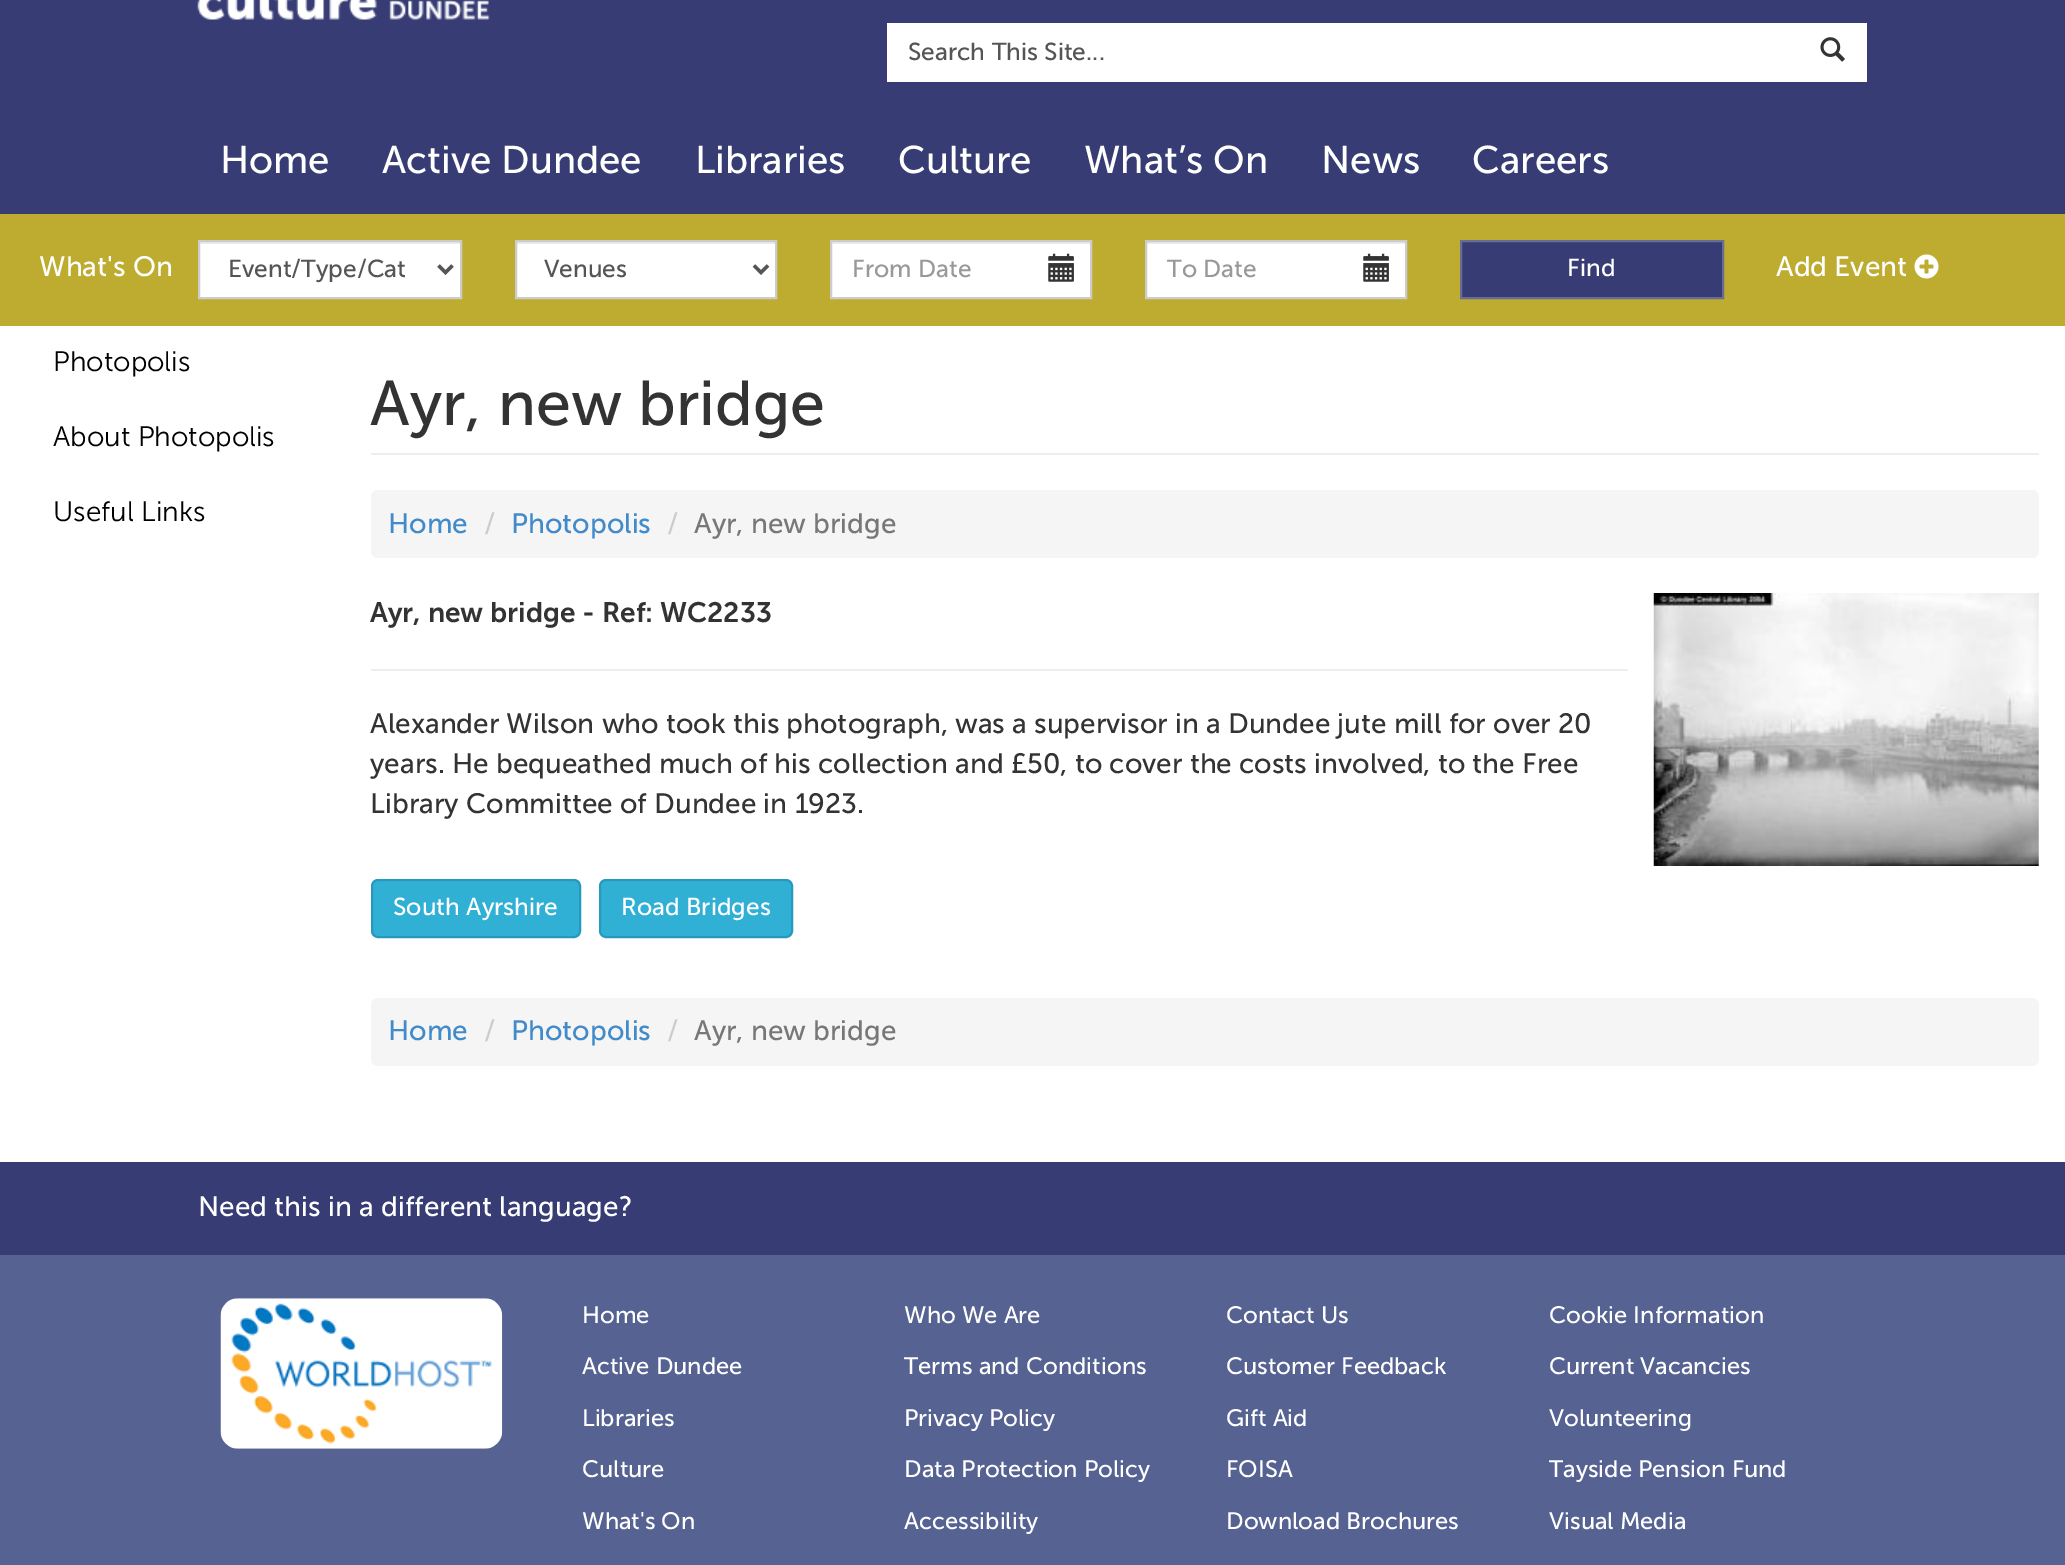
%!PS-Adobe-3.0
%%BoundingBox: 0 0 2065 1565
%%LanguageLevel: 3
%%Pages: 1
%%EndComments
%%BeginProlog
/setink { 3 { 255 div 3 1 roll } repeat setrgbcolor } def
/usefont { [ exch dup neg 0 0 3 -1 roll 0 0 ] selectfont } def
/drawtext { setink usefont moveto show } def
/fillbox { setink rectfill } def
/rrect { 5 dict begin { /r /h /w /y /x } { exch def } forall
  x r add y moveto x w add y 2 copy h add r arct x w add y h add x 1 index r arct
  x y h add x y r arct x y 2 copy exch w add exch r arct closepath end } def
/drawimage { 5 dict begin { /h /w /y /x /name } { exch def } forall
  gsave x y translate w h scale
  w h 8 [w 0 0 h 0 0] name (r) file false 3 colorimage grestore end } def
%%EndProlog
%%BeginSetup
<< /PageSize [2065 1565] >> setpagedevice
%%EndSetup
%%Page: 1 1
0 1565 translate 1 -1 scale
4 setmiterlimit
0 0 2065 1565 255 255 255 fillbox
0 0 2065 214 55 61 116 fillbox
(assets/img1.rgb) 197 0 293 20 drawimage
887 23 980 59 255 255 255 fillbox
(assets/img2.rgb) 1820 37 25 25 drawimage
(Search This Site...) 908 60 /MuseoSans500-Regular 24.5 85 85 85 drawtext
(Home) 220 173 /MuseoSans500-Regular 38.5 255 255 255 drawtext
(Active Dundee) 382 173 /MuseoSans500-Regular 38.5 255 255 255 drawtext
(Libraries) 695 173 /MuseoSans500-Regular 38.5 255 255 255 drawtext
(Culture) 898 173 /MuseoSans500-Regular 38.5 255 255 255 drawtext
(What’s On) 1084 173 /MuseoSans500-Regular 38.5 255 255 255 drawtext
(News) 1321 173 /MuseoSans500-Regular 38.5 255 255 255 drawtext
(Careers) 1472 173 /MuseoSans500-Regular 38.5 255 255 255 drawtext
0 214 2065 112 190 172 48 fillbox
(What's On) 39 276 /MuseoSans500-Regular 28 255 255 255 drawtext
200 244 260 53 255 255 255 fillbox
200 242 260 2 236 236 236 fillbox
204 204 204 setink
2 setlinewidth
199 241 262 57 rectstroke
85 85 85 setink
3.5 setlinewidth
438.5 265.5 moveto 445.5 272.5 lineto 452.5 265.5 lineto stroke
(Event/Type/Cat) 228 277 /MuseoSans500-Regular 24.5 85 85 85 drawtext
517 244 258 53 255 255 255 fillbox
516 242 259 2 236 236 236 fillbox
204 204 204 setink
2 setlinewidth
516 241 260 57 rectstroke
85 85 85 setink
3.5 setlinewidth
754 265.5 moveto 761 272.5 lineto 768 265.5 lineto stroke
(Venues) 544 277 /MuseoSans500-Regular 24.5 85 85 85 drawtext
832 244 258 53 255 255 255 fillbox
831 242 259 2 236 236 236 fillbox
204 204 204 setink
2 setlinewidth
831 241 260 57 rectstroke
(From Date) 852 277 /MuseoSans500-Regular 24.5 153 153 153 drawtext
(assets/img3.rgb) 1048 253 26 29 drawimage
1147 244 258 53 255 255 255 fillbox
1146 242 259 2 236 236 236 fillbox
204 204 204 setink
1146 241 260 57 rectstroke
(To Date) 1167 277 /MuseoSans500-Regular 24.5 153 153 153 drawtext
(assets/img3.rgb) 1363 253 26 29 drawimage
55 61 116 setink
1461 241 moveto 1723 241 lineto 1723 298 lineto 1461 298 lineto closepath gsave fill grestore
105 109 150 setink
stroke
(Find) 1567 276 /MuseoSans500-Regular 24.5 255 255 255 drawtext
(Add Event) 1776 276 /MuseoSans500-Regular 28 255 255 255 drawtext
(assets/img4.rgb) 1914 254 25 25 drawimage
(Photopolis) 53 371 /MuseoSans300-Light 28 0 0 0 drawtext
(About Photopolis) 53 446 /MuseoSans300-Light 28 0 0 0 drawtext
(Useful Links) 53 521 /MuseoSans300-Light 28 0 0 0 drawtext
371 453 1668 2 238 238 238 fillbox
(Ayr, new bridge) 370 425 /MuseoSans500-Regular 63 51 51 51 drawtext
245 245 245 setink
371 490 1668 68 7 rrect fill
(Home) 388 533 /MuseoSans500-Regular 28 66 139 202 drawtext
(/) 484 533 /MuseoSans500-Regular 28 204 204 204 drawtext
(Photopolis) 511 533 /MuseoSans500-Regular 28 66 139 202 drawtext
(/) 667 533 /MuseoSans500-Regular 28 204 204 204 drawtext
(Ayr, new bridge) 694 533 /MuseoSans500-Regular 28 119 119 119 drawtext
(Ayr, new bridge - Ref: WC2233) 370 622 /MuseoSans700-SemiBold 28 51 51 51 drawtext
371 669 1257 2 238 238 238 fillbox
(Alexander Wilson who took this photograph, was a supervisor in a Dundee jute mill for over 20) 370 733 /MuseoSans500-Regular 28 51 51 51 drawtext
(years. He bequeathed much of his collection and £50, to cover the costs involved, to the Free) 370 773 /MuseoSans500-Regular 28 51 51 51 drawtext
(Library Committee of Dundee in 1923.) 370 813 /MuseoSans500-Regular 28 51 51 51 drawtext
(assets/img5.rgb) 1653 593 386 273 drawimage
49 176 213 setink
372 880 208 57 6 rrect gsave fill grestore
38 154 188 setink
stroke
(South Ayrshire) 393 915 /MuseoSans500-Regular 24.5 255 255 255 drawtext
49 176 213 setink
600 880 192 57 6 rrect gsave fill grestore
38 154 188 setink
stroke
(Road Bridges) 621 915 /MuseoSans500-Regular 24.5 255 255 255 drawtext
245 245 245 setink
371 998 1668 68 7 rrect fill
(Home) 388 1040 /MuseoSans500-Regular 28 66 139 202 drawtext
(/) 484 1040 /MuseoSans500-Regular 28 204 204 204 drawtext
(Photopolis) 511 1040 /MuseoSans500-Regular 28 66 139 202 drawtext
(/) 667 1040 /MuseoSans500-Regular 28 204 204 204 drawtext
(Ayr, new bridge) 694 1040 /MuseoSans500-Regular 28 119 119 119 drawtext
0 1162 2065 93 55 61 116 fillbox
(Need this in a different language?) 198 1216 /MuseoSans500-Regular 28 255 255 255 drawtext
0 1255 2065 310 85 98 146 fillbox
(assets/img6.rgb) 220 1298 283 151 drawimage
(Home) 582 1323 /MuseoSans500-Regular 23.75 255 255 255 drawtext
(Active Dundee) 582 1374 /MuseoSans500-Regular 23.75 255 255 255 drawtext
(Libraries) 582 1426 /MuseoSans500-Regular 23.75 255 255 255 drawtext
(Culture) 582 1477 /MuseoSans500-Regular 23.75 255 255 255 drawtext
(What's On) 582 1529 /MuseoSans500-Regular 23.75 255 255 255 drawtext
(Who We Are) 904 1323 /MuseoSans500-Regular 23.75 255 255 255 drawtext
(Terms and Conditions) 904 1374 /MuseoSans500-Regular 23.75 255 255 255 drawtext
(Privacy Policy) 904 1426 /MuseoSans500-Regular 23.75 255 255 255 drawtext
(Data Protection Policy) 904 1477 /MuseoSans500-Regular 23.75 255 255 255 drawtext
(Accessibility) 904 1529 /MuseoSans500-Regular 23.75 255 255 255 drawtext
(Contact Us) 1226 1323 /MuseoSans500-Regular 23.75 255 255 255 drawtext
(Customer Feedback) 1226 1374 /MuseoSans500-Regular 23.75 255 255 255 drawtext
(Gift Aid) 1226 1426 /MuseoSans500-Regular 23.75 255 255 255 drawtext
(FOISA) 1226 1477 /MuseoSans500-Regular 23.75 255 255 255 drawtext
(Download Brochures) 1226 1529 /MuseoSans500-Regular 23.75 255 255 255 drawtext
(Cookie Information) 1549 1323 /MuseoSans500-Regular 23.75 255 255 255 drawtext
(Current Vacancies) 1549 1374 /MuseoSans500-Regular 23.75 255 255 255 drawtext
(Volunteering) 1549 1426 /MuseoSans500-Regular 23.75 255 255 255 drawtext
(Tayside Pension Fund) 1549 1477 /MuseoSans500-Regular 23.75 255 255 255 drawtext
(Visual Media) 1549 1529 /MuseoSans500-Regular 23.75 255 255 255 drawtext
showpage
%%EOF
